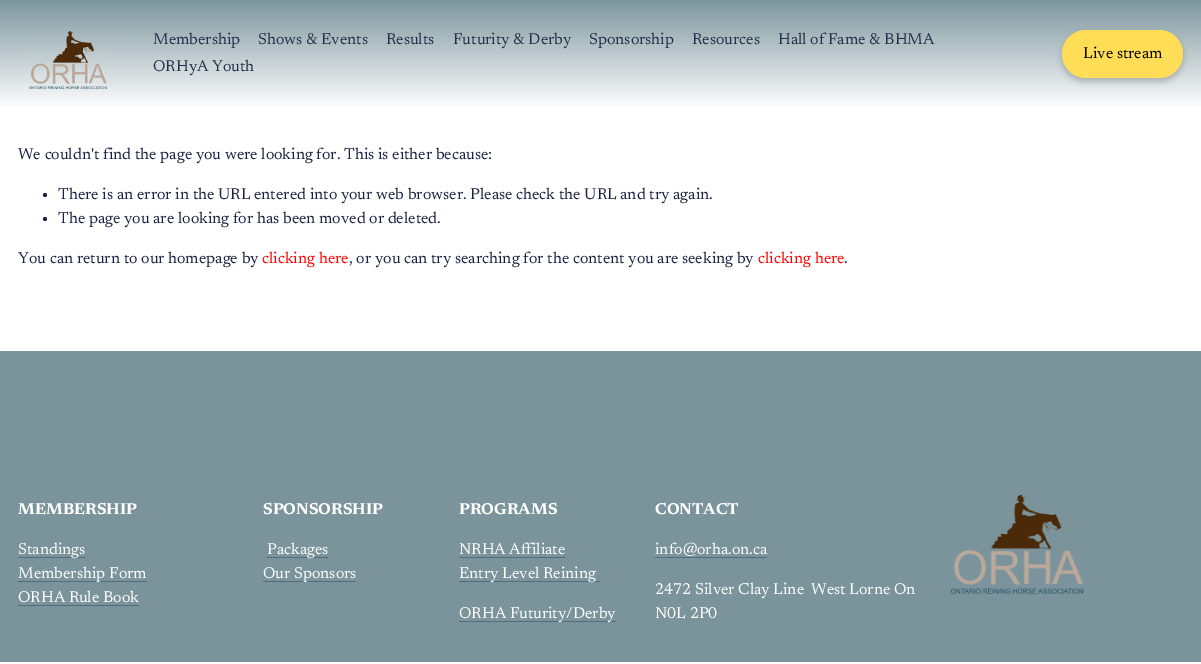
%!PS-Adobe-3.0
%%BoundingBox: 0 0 1201 664
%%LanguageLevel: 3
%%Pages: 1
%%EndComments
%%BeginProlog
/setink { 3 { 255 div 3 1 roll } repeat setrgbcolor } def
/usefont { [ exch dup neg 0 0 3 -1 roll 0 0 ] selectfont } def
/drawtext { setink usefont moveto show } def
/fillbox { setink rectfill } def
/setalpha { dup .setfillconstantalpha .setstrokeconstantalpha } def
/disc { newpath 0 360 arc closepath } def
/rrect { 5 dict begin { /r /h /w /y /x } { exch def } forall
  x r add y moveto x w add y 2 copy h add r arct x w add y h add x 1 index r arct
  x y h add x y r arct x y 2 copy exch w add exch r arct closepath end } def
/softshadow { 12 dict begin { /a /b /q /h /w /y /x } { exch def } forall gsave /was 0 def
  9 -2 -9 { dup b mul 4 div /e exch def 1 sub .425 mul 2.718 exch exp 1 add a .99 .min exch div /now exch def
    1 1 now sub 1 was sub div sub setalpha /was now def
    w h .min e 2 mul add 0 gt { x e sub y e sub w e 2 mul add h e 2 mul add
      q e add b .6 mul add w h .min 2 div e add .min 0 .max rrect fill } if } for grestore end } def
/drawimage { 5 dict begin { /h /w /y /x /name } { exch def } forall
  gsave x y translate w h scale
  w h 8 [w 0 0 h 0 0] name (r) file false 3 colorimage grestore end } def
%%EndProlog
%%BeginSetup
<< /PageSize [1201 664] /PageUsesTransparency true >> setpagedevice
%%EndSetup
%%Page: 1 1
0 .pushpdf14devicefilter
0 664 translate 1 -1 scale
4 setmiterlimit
0 0 1201 664 255 255 255 fillbox
gsave 0 0 moveto 1201 0 lineto 1201 107 lineto 0 107 lineto closepath clip newpath
<< /ShadingType 2 /ColorSpace /DeviceRGB /Coords [601 -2 601 109] /Extend [true true] /Function << /FunctionType 2 /Domain [0 1] /C0 [0.482 0.58 0.612] /C1 [1 1 1] /N 1 >> >> shfill grestore
(assets/img1.rgb) 28 31 80 59 drawimage
(Membership) 153 44 /Newsreader-Regular 16 36 46 75 drawtext
(Shows & Events) 258 44 /Newsreader-Regular 16 36 46 75 drawtext
(Results) 386 44 /Newsreader-Regular 16 36 46 75 drawtext
(Futurity & Derby) 453 44 /Newsreader-Regular 16 36 46 75 drawtext
(Sponsorship) 589 44 /Newsreader-Regular 16 36 46 75 drawtext
(Resources) 692 44 /Newsreader-Regular 16 36 46 75 drawtext
(Hall of Fame & BHMA) 778 44 /Newsreader-Regular 16 36 46 75 drawtext
(ORHyA Youth) 153 71 /Newsreader-Regular 16 36 46 75 drawtext
0 0 0 setink
1062 34 121 48 24 3 0.2 softshadow
255 221 87 setink
1062 30 121 48 24 rrect fill
(Live stream) 1083 58 /Newsreader-Regular 16 0 0 0 drawtext
(We couldn't find the page you were looking for. This is either because:) 18 159 /Newsreader-Regular 16 24 34 65 drawtext
45 195 2 disc fill
(There is an error in the URL entered into your web browser. Please check the URL and try again.) 58 199 /Newsreader-Regular 16 24 34 65 drawtext
45 219 2 disc fill
(The page you are looking for has been moved or deleted.) 58 223 /Newsreader-Regular 16 24 34 65 drawtext
(You can return to our homepage by) 18 263 /Newsreader-Regular 16 24 34 65 drawtext
(clicking here) 262 263 /Newsreader-Regular 16 255 1 1 drawtext
(, or you can try searching for the content you are seeking by) 349 263 /Newsreader-Regular 16 24 34 65 drawtext
(clicking here) 758 263 /Newsreader-Regular 16 255 1 1 drawtext
(.) 844 263 /Newsreader-Regular 16 24 34 65 drawtext
0 351 1201 311 123 148 156 fillbox
(MEMBERSHIP) 18 514 /Newsreader-Bold 16 255 255 255 drawtext
18 557 67 1 83 108 124 fillbox
(Standings) 18 554 /Newsreader-Regular 16 255 255 255 drawtext
18 581 129 1 83 108 124 fillbox
(Membership Form) 18 578 /Newsreader-Regular 16 255 255 255 drawtext
(ORHA Rule Book) 18 602 /Newsreader-Regular 16 255 255 255 drawtext
18 605 121 1 83 108 124 fillbox
(SPONSORSHIP) 263 514 /Newsreader-Bold 16 255 255 255 drawtext
267 557 61 1 83 108 124 fillbox
(Packages) 267 554 /Newsreader-Regular 16 255 255 255 drawtext
263 581 93 1 83 108 124 fillbox
(Our Sponsors) 263 578 /Newsreader-Regular 16 255 255 255 drawtext
(PROGRAMS) 459 514 /Newsreader-Bold 16 255 255 255 drawtext
(NRHA Affiliate) 459 554 /Newsreader-Regular 16 255 255 255 drawtext
459 557 106 1 83 108 124 fillbox
459 581 141 1 83 108 124 fillbox
(Entry Level Reining) 459 578 /Newsreader-Regular 16 255 255 255 drawtext
459 621 157 1 83 108 124 fillbox
(ORHA Futurity/Derby) 459 618 /Newsreader-Regular 16 255 255 255 drawtext
(CONTACT) 655 514 /Newsreader-Bold 16 255 255 255 drawtext
(info@orha.on.ca) 655 554 /Newsreader-Regular 16 255 255 255 drawtext
655 557 112 1 83 108 124 fillbox
(2472 Silver Clay Line  West Lorne On) 655 594 /Newsreader-Regular 16 255 255 255 drawtext
(N0L 2P0) 655 618 /Newsreader-Regular 16 255 255 255 drawtext
(assets/img2.rgb) 950 494 134 100 drawimage
.poppdf14devicefilter showpage
%%EOF
